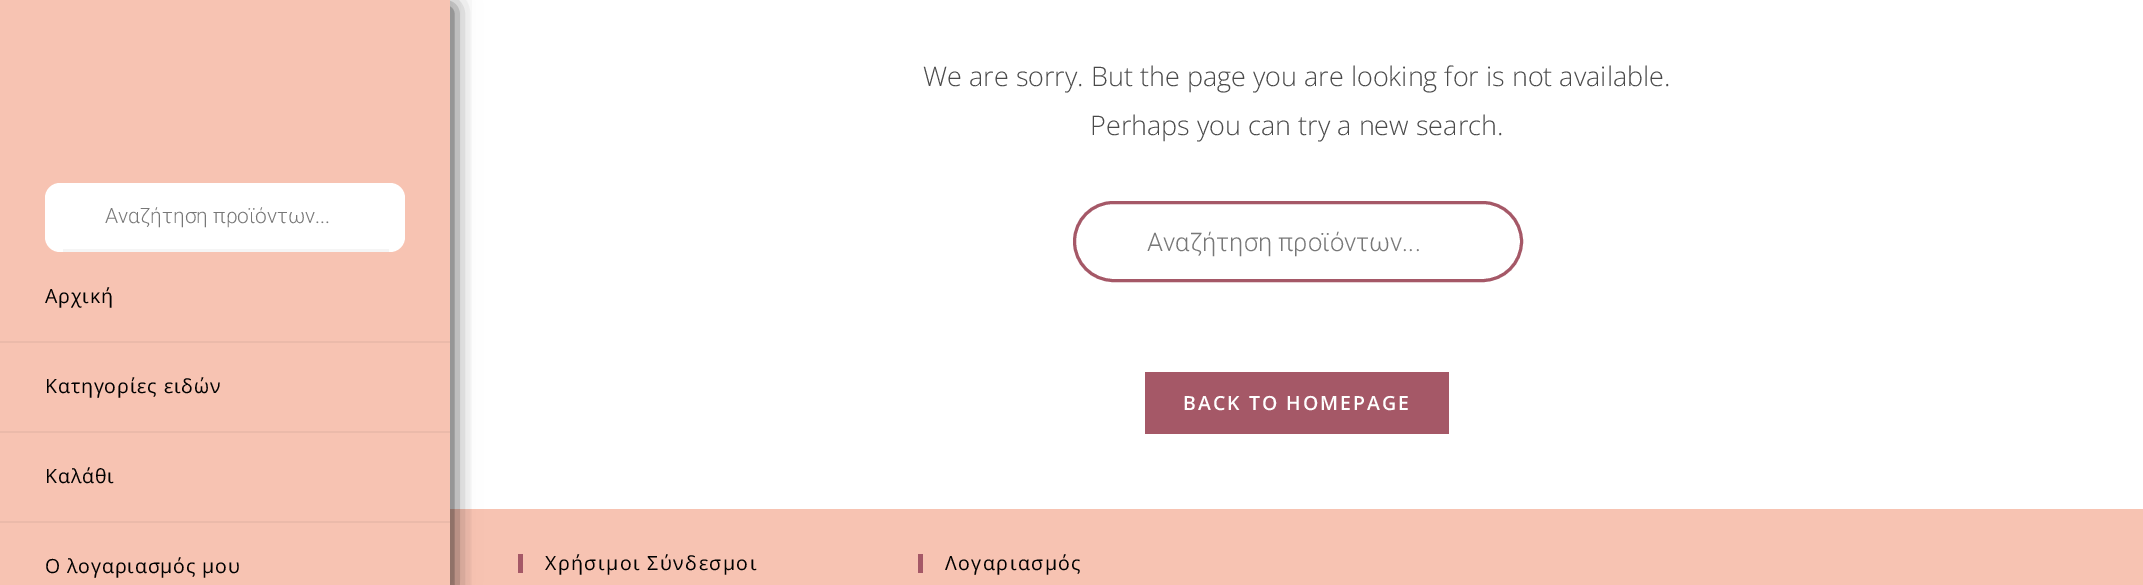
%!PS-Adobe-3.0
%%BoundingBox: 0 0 2143 585
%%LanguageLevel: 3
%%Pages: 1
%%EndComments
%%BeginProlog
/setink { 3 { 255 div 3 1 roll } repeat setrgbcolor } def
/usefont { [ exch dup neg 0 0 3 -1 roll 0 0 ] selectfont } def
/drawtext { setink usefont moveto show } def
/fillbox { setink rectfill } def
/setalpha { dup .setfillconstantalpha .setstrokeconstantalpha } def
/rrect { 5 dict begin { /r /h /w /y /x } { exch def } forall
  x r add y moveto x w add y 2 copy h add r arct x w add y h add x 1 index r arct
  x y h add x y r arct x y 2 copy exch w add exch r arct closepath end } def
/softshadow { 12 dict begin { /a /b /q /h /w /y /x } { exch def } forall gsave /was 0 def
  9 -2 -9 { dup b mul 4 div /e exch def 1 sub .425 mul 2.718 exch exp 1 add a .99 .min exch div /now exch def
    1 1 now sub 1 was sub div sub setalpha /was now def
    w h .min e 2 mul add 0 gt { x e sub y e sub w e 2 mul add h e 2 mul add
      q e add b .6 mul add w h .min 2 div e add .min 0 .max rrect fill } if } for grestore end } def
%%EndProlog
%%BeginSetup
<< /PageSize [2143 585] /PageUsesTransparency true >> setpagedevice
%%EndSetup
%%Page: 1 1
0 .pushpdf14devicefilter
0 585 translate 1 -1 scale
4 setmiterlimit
0 0 2143 585 255 255 255 fillbox
450 509 1693 76 247 195 178 fillbox
0 0 0 setink
0 0 450 585 0 15 0.1 softshadow
0 0 450 585 247 195 178 fillbox
gsave
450 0 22 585 rectclip
0 0 0 setink
2 8 450 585 0 10.5 0.77 softshadow
grestore
255 255 255 setink
45 183 360 69 15 rrect fill
63 249 326 3 245 245 245 fillbox
(Αναζήτηση προϊόντων...) 105 223 /Roboto-Light 21 119 119 119 drawtext
0 341 450 2 235 186 170 fillbox
/OpenSans-Regular 19.5 usefont
0 0 0 setink
45 303 moveto 0.9 0 (Αρχική) ashow
0 431 450 2 235 186 170 fillbox
0 0 0 setink
45 393 moveto 0.9 0 (Κατηγορίες ειδών) ashow
0 521 450 2 235 186 170 fillbox
0 0 0 setink
45 483 moveto 0.9 0 (Καλάθι) ashow
45 573 moveto 0.9 0 (Ο λογαριασμός μου) ashow
518 554 5 19 165 88 103 fillbox
0 0 0 setink
545 570 moveto 1.5 0 (Χρήσιμοι Σύνδεσμοι) ashow
918 554 5 19 165 88 103 fillbox
0 0 0 setink
945 570 moveto 1.5 0 (Λογαριασμός) ashow
(We are sorry. But the page you are looking for is not available.) 923 86 /OpenSans-Light 27 74 74 74 drawtext
(Perhaps you can try a new search.) 1090 135 /OpenSans-Light 27 74 74 74 drawtext
165 88 103 setink
3 setlinewidth
1074.5 202.5 447 78 39 rrect stroke
(Αναζήτηση προϊόντων...) 1147 251 /Roboto-Light 25.5 119 119 119 drawtext
1145 372 304 62 165 88 103 fillbox
/OpenSans-SemiBold 19.5 usefont
255 255 255 setink
1183 410 moveto 2 0 (BACK TO HOMEPAGE) ashow
.poppdf14devicefilter showpage
%%EOF
